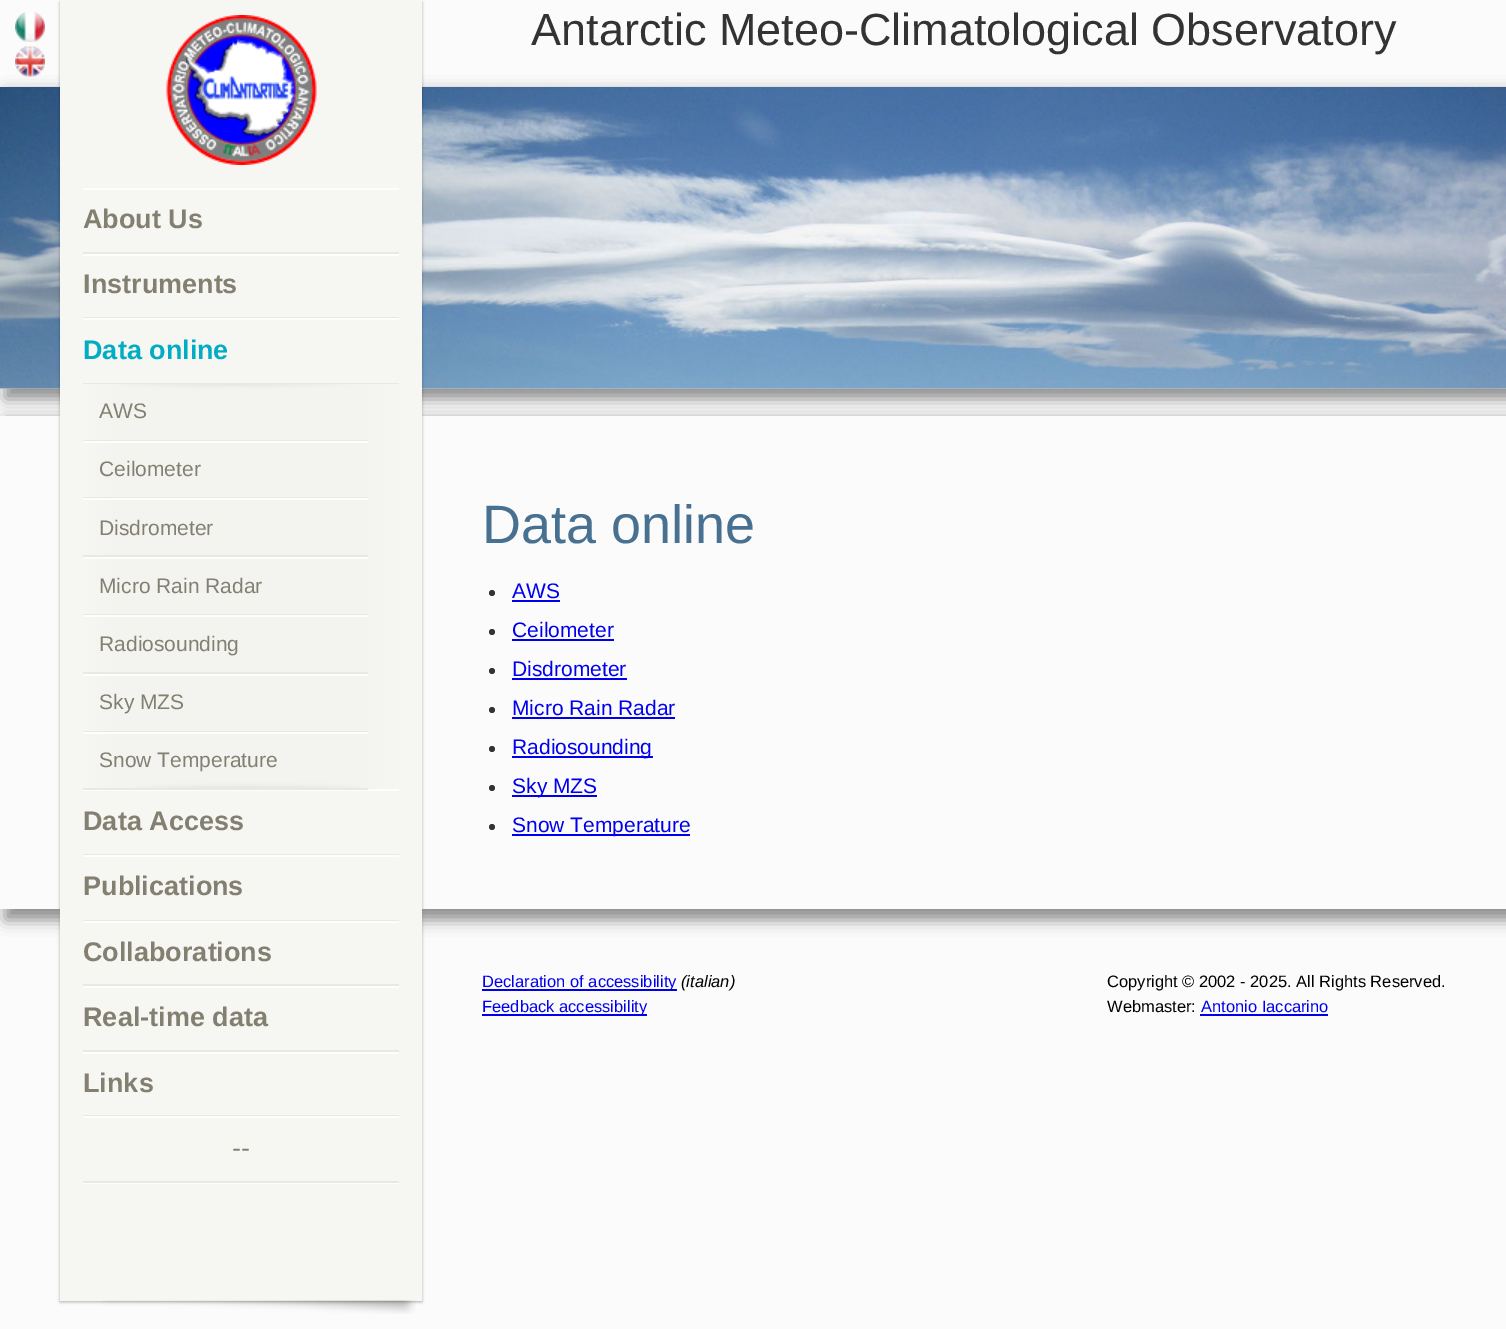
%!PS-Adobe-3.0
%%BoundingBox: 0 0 1506 1329
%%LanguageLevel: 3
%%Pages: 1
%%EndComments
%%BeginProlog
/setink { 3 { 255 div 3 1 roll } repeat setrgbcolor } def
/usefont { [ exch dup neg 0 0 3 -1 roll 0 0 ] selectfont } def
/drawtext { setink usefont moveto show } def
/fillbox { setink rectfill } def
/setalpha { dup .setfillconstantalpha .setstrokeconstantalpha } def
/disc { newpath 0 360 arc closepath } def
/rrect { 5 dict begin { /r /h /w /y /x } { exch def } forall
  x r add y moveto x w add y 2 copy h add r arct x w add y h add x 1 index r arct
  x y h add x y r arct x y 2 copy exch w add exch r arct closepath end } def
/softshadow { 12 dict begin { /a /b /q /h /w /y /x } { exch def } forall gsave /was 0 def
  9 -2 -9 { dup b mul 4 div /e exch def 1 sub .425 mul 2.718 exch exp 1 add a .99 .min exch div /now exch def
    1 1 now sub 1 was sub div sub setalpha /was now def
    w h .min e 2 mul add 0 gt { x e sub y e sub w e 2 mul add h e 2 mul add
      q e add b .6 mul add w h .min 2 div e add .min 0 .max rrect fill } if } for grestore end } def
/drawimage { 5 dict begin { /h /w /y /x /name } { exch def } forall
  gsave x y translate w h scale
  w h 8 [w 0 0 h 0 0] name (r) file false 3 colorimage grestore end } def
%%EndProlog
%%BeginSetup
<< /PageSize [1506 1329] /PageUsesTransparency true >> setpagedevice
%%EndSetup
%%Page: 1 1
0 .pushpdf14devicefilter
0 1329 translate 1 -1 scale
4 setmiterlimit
0 0 1506 1329 251 251 251 fillbox
(assets/img1.rgb) 15 12 30 30 drawimage
0 388 1506 5 255 255 255 fillbox
140 140 140 setink
5 92 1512 307 0 7.5 1 softshadow
(assets/img2.rgb) 15 46 30 31 drawimage
(Antarctic Meteo-Climatological Observatory) 531 45 /LiberationSans-Regular 45 51 51 51 drawtext
(assets/img3.rgb) 0 87 1506 302 drawimage
0 0 0 setink
60 2 362 1300 0 1.5 0.3 softshadow
gsave
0 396 moveto 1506 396 lineto 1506 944 lineto 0 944 lineto closepath 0 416 moveto 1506 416 lineto 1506 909 lineto 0 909 lineto closepath eoclip newpath
140 140 140 setink
5 420 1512 500 0 7.5 1 softshadow
grestore
60 0 362 1301 246 246 243 fillbox
(assets/img4.rgb) 166 15 151 150 drawimage
83 1183 316 1 253 253 252 fillbox
83 188 316 2 253 253 252 fillbox
83 252 316 2 232 232 229 fillbox
(About Us) 83 228 /LiberationSans-Bold 27 131 128 113 drawtext
83 254 316 2 253 253 252 fillbox
83 317 316 1 232 232 229 fillbox
(Instruments) 83 293 /LiberationSans-Bold 27 131 128 113 drawtext
83 318 316 2 253 253 252 fillbox
83 383 316 1 232 232 229 fillbox
(Data online) 83 359 /LiberationSans-Bold 27 2 172 197 drawtext
(assets/img5.rgb) 83 384 316 405 drawimage
83 440 285 1 232 232 229 fillbox
(AWS) 99 418 /LiberationSans-Regular 21 131 128 113 drawtext
83 441 285 2 253 253 252 fillbox
83 497 285 1 232 232 229 fillbox
(Ceilometer) 99 476 /LiberationSans-Regular 21 131 128 113 drawtext
83 498 285 2 253 253 252 fillbox
83 555 285 2 232 232 229 fillbox
(Disdrometer) 99 535 /LiberationSans-Regular 21 131 128 113 drawtext
83 557 285 2 253 253 252 fillbox
83 614 285 1 232 232 229 fillbox
(Micro Rain Radar) 99 593 /LiberationSans-Regular 21 131 128 113 drawtext
83 615 285 2 253 253 252 fillbox
83 672 285 2 232 232 229 fillbox
(Radiosounding) 99 651 /LiberationSans-Regular 21 131 128 113 drawtext
83 674 285 2 253 253 252 fillbox
83 731 285 1 232 232 229 fillbox
(Sky MZS) 99 709 /LiberationSans-Regular 21 131 128 113 drawtext
83 732 285 2 253 253 252 fillbox
83 789 316 2 253 253 252 fillbox
83 788 285 2 232 232 229 fillbox
(Snow Temperature) 99 767 /LiberationSans-Regular 21 131 128 113 drawtext
83 854 316 1 232 232 229 fillbox
(Data Access) 83 830 /LiberationSans-Bold 27 131 128 113 drawtext
83 855 316 2 253 253 252 fillbox
83 920 316 1 232 232 229 fillbox
(Publications) 83 895 /LiberationSans-Bold 27 131 128 113 drawtext
83 921 316 2 253 253 252 fillbox
83 984 316 2 232 232 229 fillbox
(Collaborations) 83 961 /LiberationSans-Bold 27 131 128 113 drawtext
83 986 316 2 253 253 252 fillbox
83 1050 316 2 232 232 229 fillbox
(Real-time data) 83 1026 /LiberationSans-Bold 27 131 128 113 drawtext
83 1052 316 2 253 253 252 fillbox
83 1115 316 1 232 232 229 fillbox
(Links) 83 1092 /LiberationSans-Bold 27 131 128 113 drawtext
83 1116 316 2 253 253 252 fillbox
83 1181 316 2 232 232 229 fillbox
(--) 232 1157 /LiberationSans-Regular 27 131 128 113 drawtext
(assets/img6.rgb) 102 1300 314 14 drawimage
(Data online) 482 543 /LiberationSans-Regular 54 72 113 145 drawtext
51 51 51 setink
492 593 3 disc fill
(AWS) 512 598 /LiberationSans-Regular 21 0 0 238 drawtext
512 600 48 2 0 0 238 fillbox
51 51 51 setink
492 632 3 disc fill
(Ceilometer) 512 637 /LiberationSans-Regular 21 0 0 238 drawtext
512 639 102 2 0 0 238 fillbox
51 51 51 setink
492 671 3 disc fill
(Disdrometer) 512 676 /LiberationSans-Regular 21 0 0 238 drawtext
512 678 115 2 0 0 238 fillbox
51 51 51 setink
492 710 3 disc fill
(Micro Rain Radar) 512 715 /LiberationSans-Regular 21 0 0 238 drawtext
512 717 163 2 0 0 238 fillbox
51 51 51 setink
492 749 3 disc fill
512 756 141 2 0 0 238 fillbox
(Radiosounding) 512 754 /LiberationSans-Regular 21 0 0 238 drawtext
51 51 51 setink
492 788 3 disc fill
512 795 85 2 0 0 238 fillbox
(Sky MZS) 512 793 /LiberationSans-Regular 21 0 0 238 drawtext
51 51 51 setink
492 827 3 disc fill
512 834 178 2 0 0 238 fillbox
(Snow Temperature) 512 832 /LiberationSans-Regular 21 0 0 238 drawtext
482 989 195 2 0 0 238 fillbox
(Declaration of accessibility) 482 987 /LiberationSans-Regular 16.5 0 0 238 drawtext
(\(italian\)) 681 987 /LiberationSans-Italic 16.5 0 0 0 drawtext
482 1014 165 2 0 0 238 fillbox
(Feedback accessibility) 482 1012 /LiberationSans-Regular 16.5 0 0 238 drawtext
(Copyright © 2002 - 2025. All Rights Reserved.) 1107 987 /LiberationSans-Regular 16.5 0 0 0 drawtext
(Webmaster:) 1107 1012 /LiberationSans-Regular 16.5 0 0 0 drawtext
(Antonio Iaccarino) 1201 1012 /LiberationSans-Regular 16.5 0 0 238 drawtext
1200 1014 128 2 0 0 238 fillbox
.poppdf14devicefilter showpage
%%EOF
